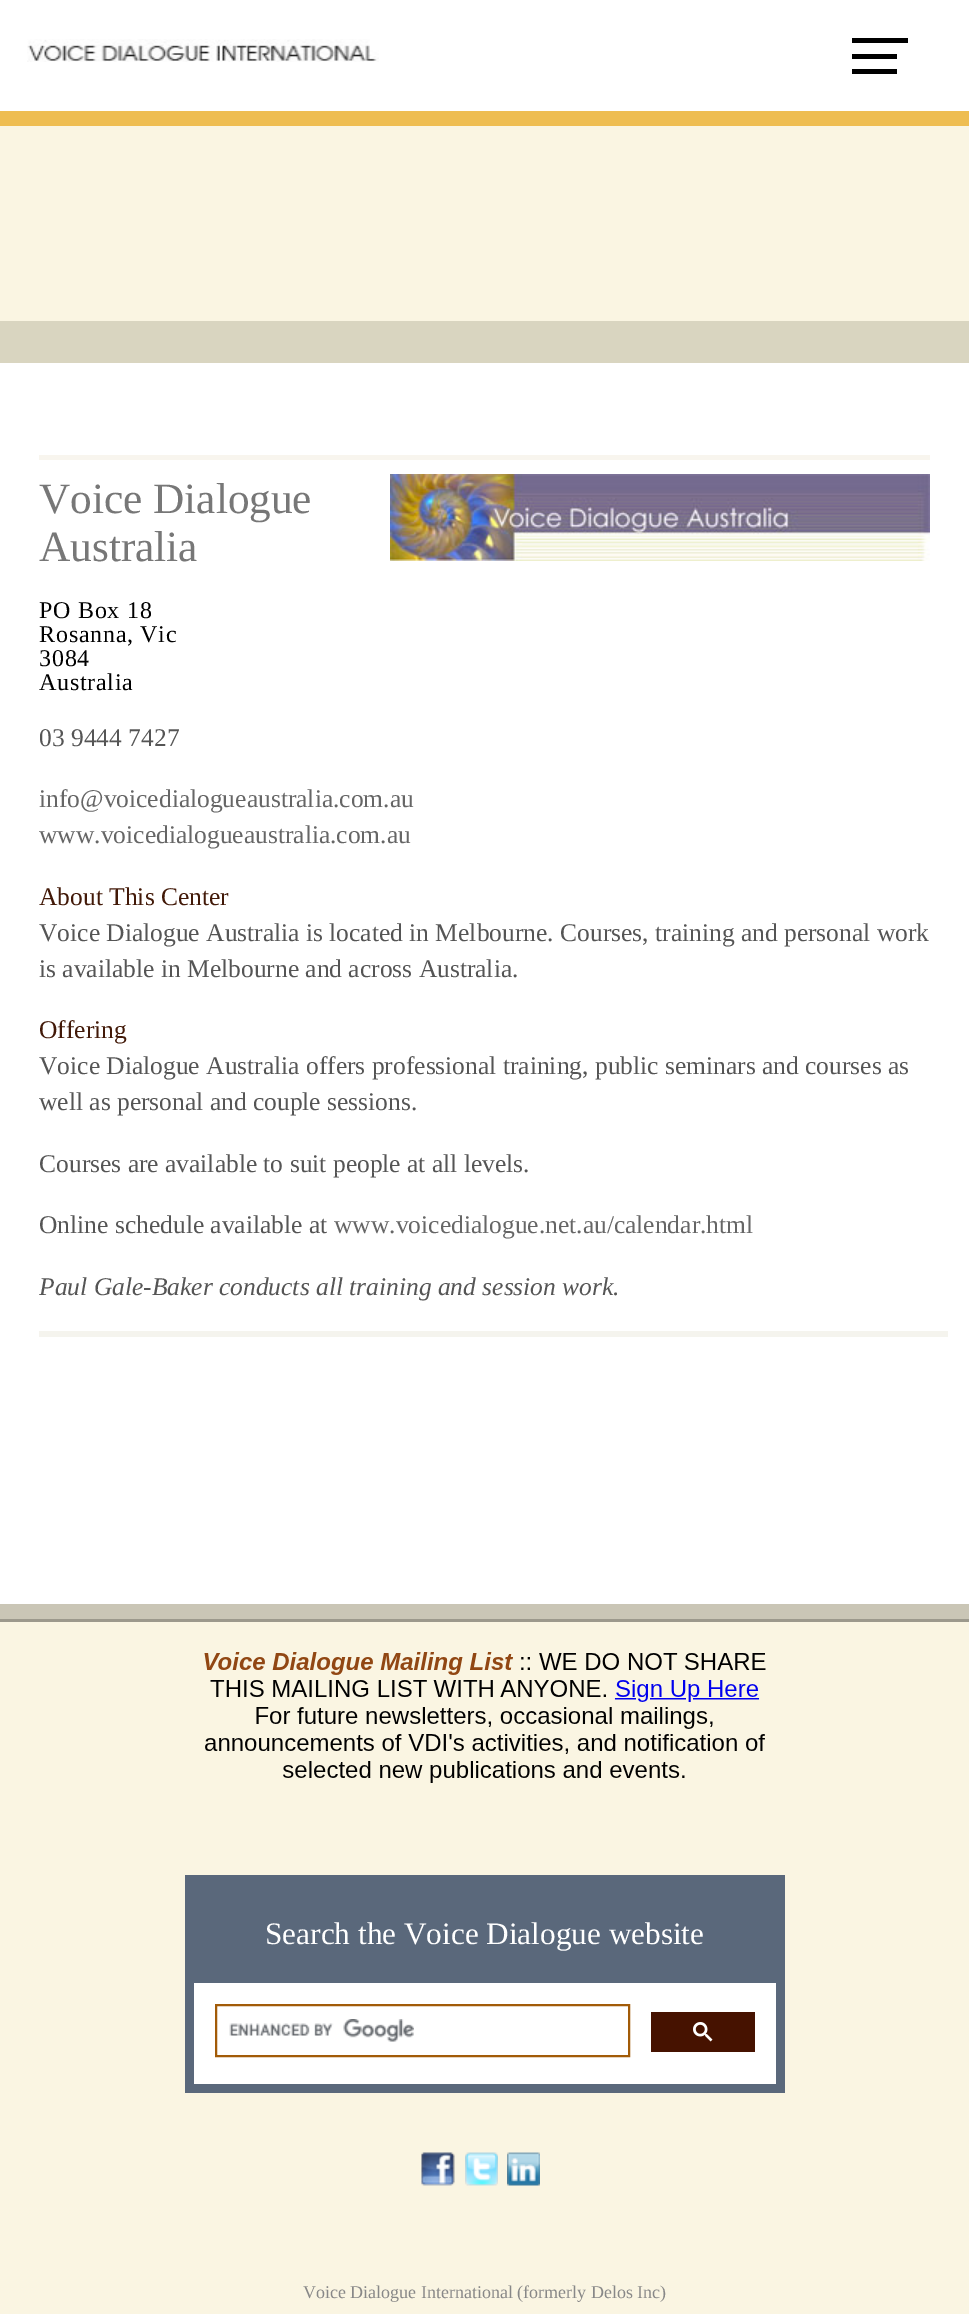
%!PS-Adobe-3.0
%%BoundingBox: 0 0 969 2314
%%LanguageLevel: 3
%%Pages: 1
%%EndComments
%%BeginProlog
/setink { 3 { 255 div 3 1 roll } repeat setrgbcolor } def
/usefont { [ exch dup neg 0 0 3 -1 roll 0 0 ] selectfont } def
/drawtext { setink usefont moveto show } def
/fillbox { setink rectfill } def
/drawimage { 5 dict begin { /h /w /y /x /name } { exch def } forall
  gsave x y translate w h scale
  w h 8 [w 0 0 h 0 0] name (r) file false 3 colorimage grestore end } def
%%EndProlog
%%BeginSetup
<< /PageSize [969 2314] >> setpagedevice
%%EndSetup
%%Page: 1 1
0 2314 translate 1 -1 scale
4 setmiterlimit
0 0 969 2314 250 245 226 fillbox
0 0 969 111 255 255 255 fillbox
0 111 969 15 238 189 81 fillbox
(assets/img1.rgb) 27 39 352 23 drawimage
852 38 56 5 0 0 0 fillbox
852 54 45 5 0 0 0 fillbox
852 69 45 5 0 0 0 fillbox
0 363 969 1241 255 255 255 fillbox
0 321 969 42 217 213 192 fillbox
39 455 891 5 248 245 238 fillbox
(Voice Dialogue) 39 513 /LiberationSerif-Regular 43.25 119 119 119 drawtext
(assets/img2.rgb) 390 474 540 87 drawimage
(Australia) 39 561 /LiberationSerif-Regular 43.25 119 119 119 drawtext
/LiberationSerif-Regular 24 usefont
0 0 0 setink
39 618 moveto 0.75 0 (PO Box 18) ashow
39 642 moveto 0.75 0 (Rosanna, Vic) ashow
39 666 moveto 0.75 0 (3084) ashow
39 690 moveto 0.75 0 (Australia) ashow
(03 9444 7427) 39 746 /LiberationSerif-Regular 25.5 85 85 85 drawtext
(info@voicedialogueaustralia.com.au) 39 807 /LiberationSerif-Regular 25.5 102 102 102 drawtext
(www.voicedialogueaustralia.com.au) 39 843 /LiberationSerif-Regular 25.5 102 102 102 drawtext
(About This Center) 39 905 /LiberationSerif-Regular 25.5 66 25 8 drawtext
(Voice Dialogue Australia is located in Melbourne. Courses, training and personal work) 39 941 /LiberationSerif-Regular 25.5 85 85 85 drawtext
(is available in Melbourne and across Australia.) 39 977 /LiberationSerif-Regular 25.5 85 85 85 drawtext
(Offering) 39 1038 /LiberationSerif-Regular 25.5 66 25 8 drawtext
(Voice Dialogue Australia offers professional training, public seminars and courses as) 39 1074 /LiberationSerif-Regular 25.5 85 85 85 drawtext
(well as personal and couple sessions.) 39 1110 /LiberationSerif-Regular 25.5 85 85 85 drawtext
(Courses are available to suit people at all levels.) 39 1172 /LiberationSerif-Regular 25.5 85 85 85 drawtext
(Online schedule available at) 39 1233 /LiberationSerif-Regular 25.5 85 85 85 drawtext
(www.voicedialogue.net.au/calendar.html) 334 1233 /LiberationSerif-Regular 25.5 102 102 102 drawtext
(Paul Gale-Baker conducts all training and session work.) 39 1295 /LiberationSerif-Italic 25.5 85 85 85 drawtext
39 1331 909 6 245 244 238 fillbox
0 1604 969 15 202 198 182 fillbox
0 1619 969 3 156 153 140 fillbox
(assets/img3.rgb) 204 1652 562 131 drawimage
185 1875 600 218 90 104 123 fillbox
(Search the Voice Dialogue website) 265 1944 /LiberationSerif-Regular 31.25 255 255 255 drawtext
194 1983 582 101 255 255 255 fillbox
162 91 8 setink
2 setlinewidth
216 2005 413 51 rectstroke
(assets/img4.rgb) 229 2019 185 23 drawimage
651 2012 104 40 70 18 0 fillbox
(assets/img5.rgb) 693 2022 20 20 drawimage
(assets/img6.rgb) 421 2152 34 34 drawimage
(assets/img7.rgb) 465 2152 33 34 drawimage
(assets/img8.rgb) 507 2152 33 34 drawimage
(Voice Dialogue International \(formerly Delos Inc\)) 303 2298 /LiberationSerif-Regular 18 136 136 136 drawtext
showpage
%%EOF
